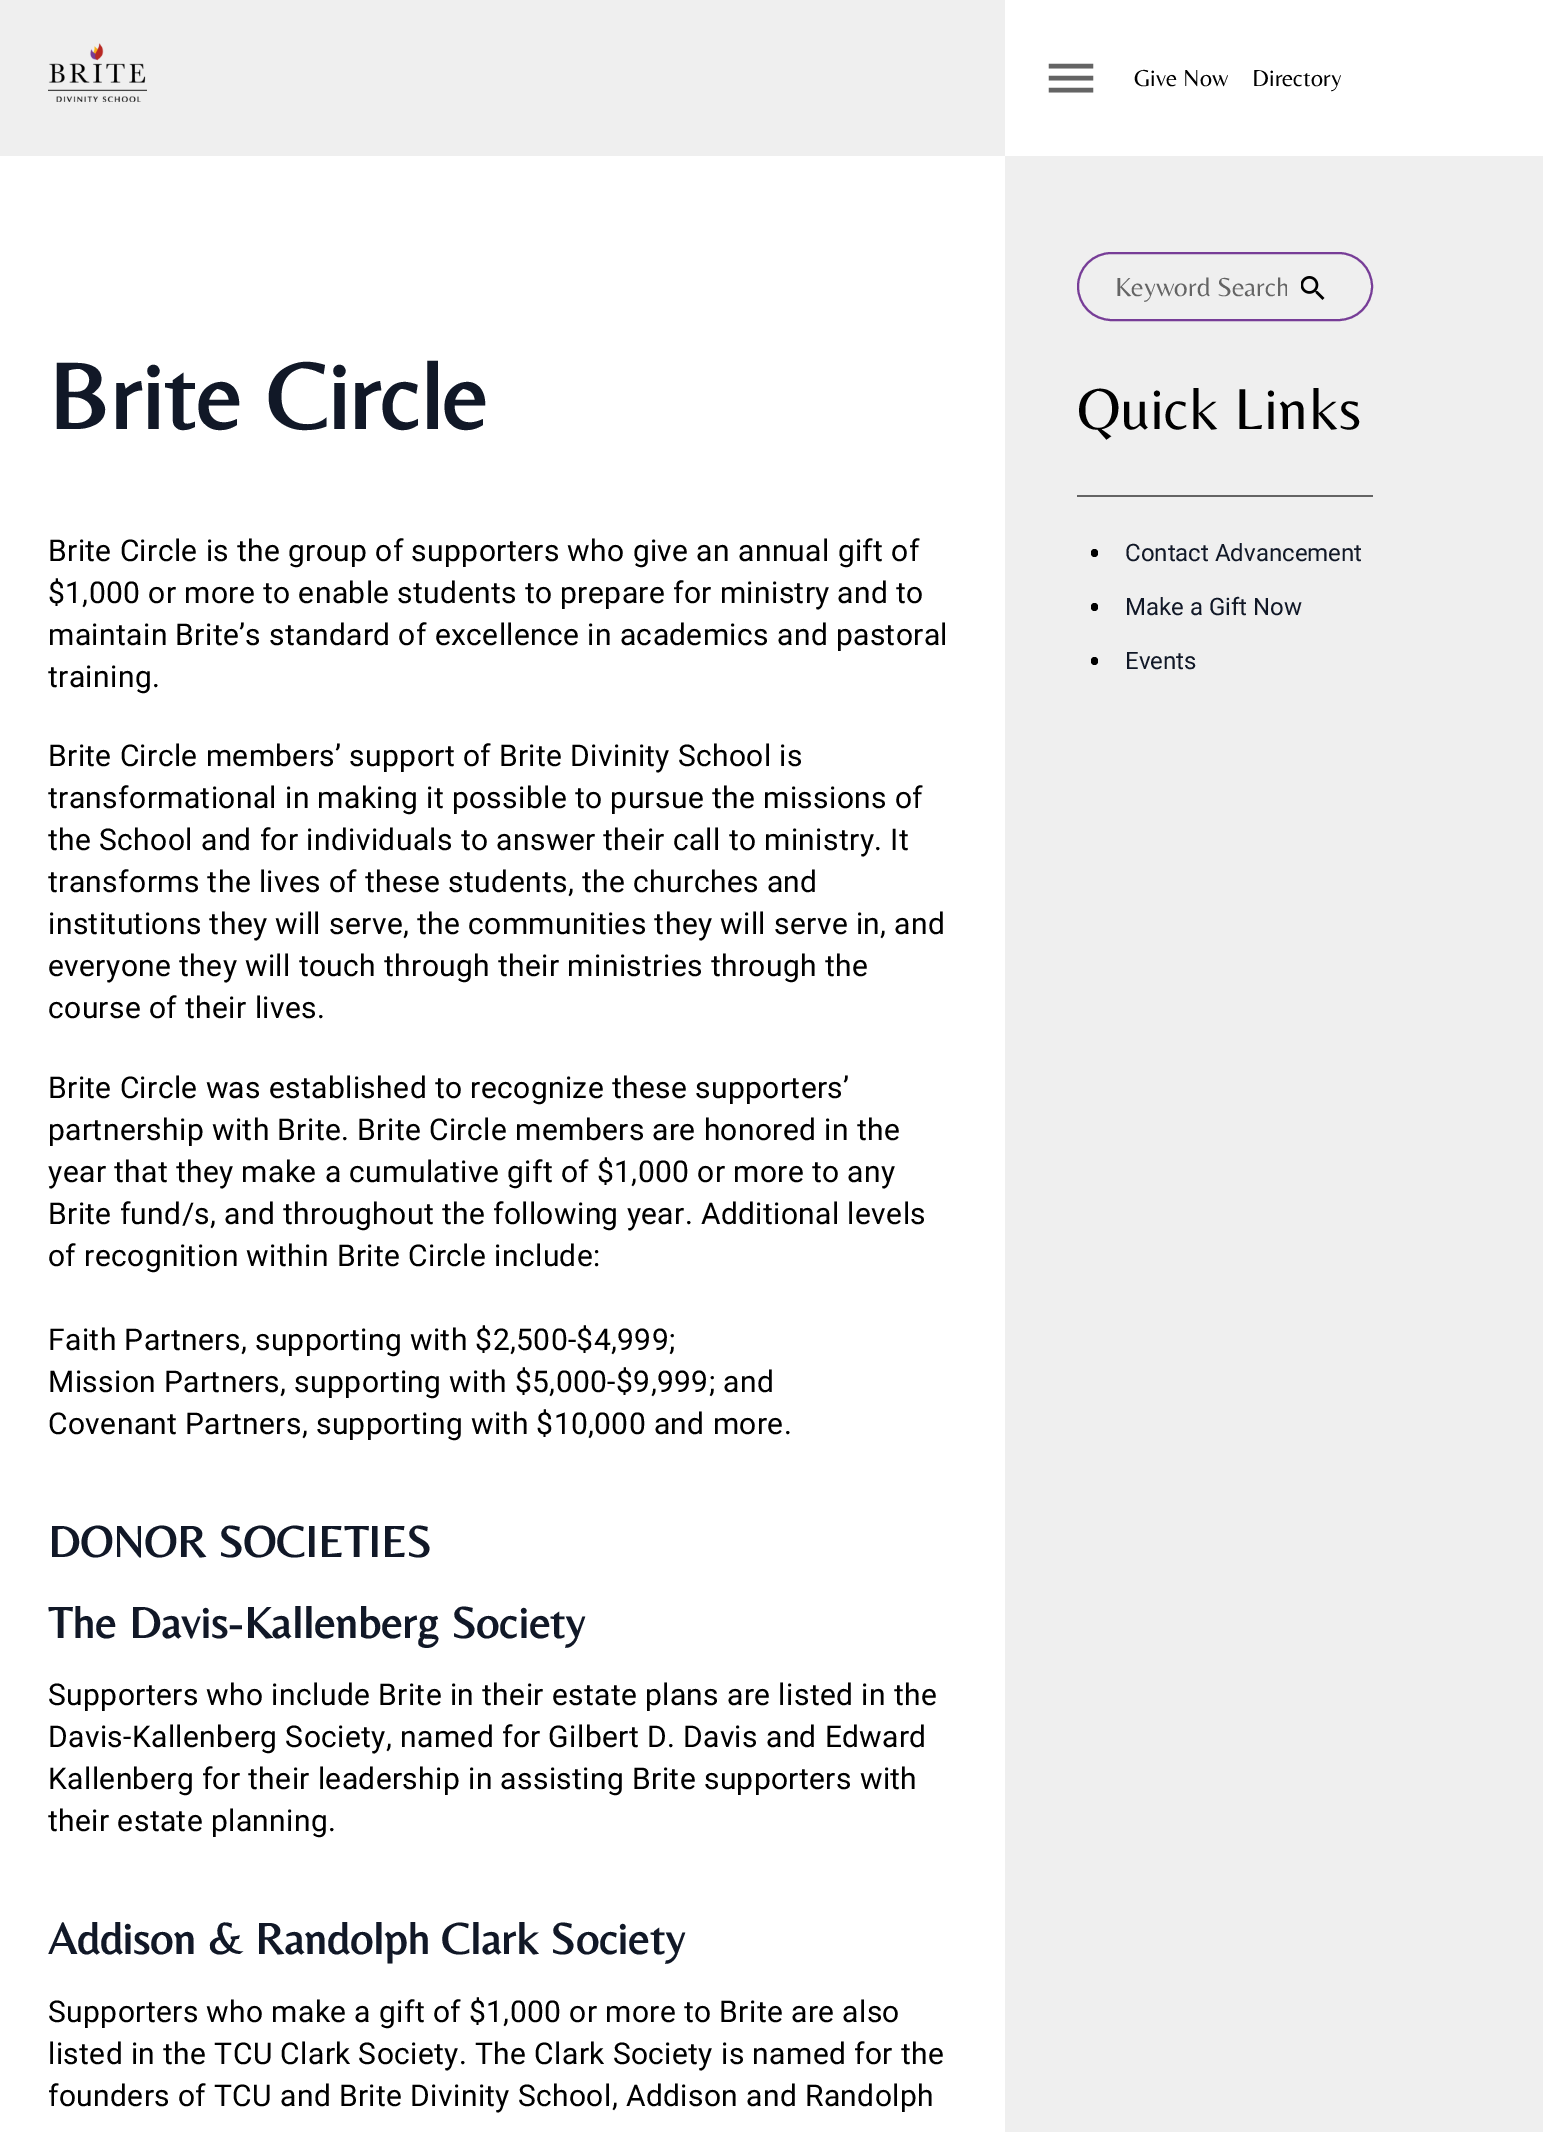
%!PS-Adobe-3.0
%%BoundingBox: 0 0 1543 2132
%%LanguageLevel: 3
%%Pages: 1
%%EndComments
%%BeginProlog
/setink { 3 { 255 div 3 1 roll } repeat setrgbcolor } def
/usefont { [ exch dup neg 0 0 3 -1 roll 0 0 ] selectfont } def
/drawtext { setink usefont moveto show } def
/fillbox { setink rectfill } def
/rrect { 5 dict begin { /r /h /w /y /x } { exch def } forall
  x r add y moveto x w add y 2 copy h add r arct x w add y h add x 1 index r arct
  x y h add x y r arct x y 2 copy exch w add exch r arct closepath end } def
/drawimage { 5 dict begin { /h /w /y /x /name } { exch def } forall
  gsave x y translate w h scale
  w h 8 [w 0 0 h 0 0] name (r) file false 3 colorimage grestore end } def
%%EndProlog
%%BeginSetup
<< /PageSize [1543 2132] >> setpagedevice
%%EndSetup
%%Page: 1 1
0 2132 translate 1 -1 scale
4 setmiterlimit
0 0 1543 2132 239 239 239 fillbox
(assets/img1.rgb) 48 43 99 59 drawimage
1005 0 538 156 255 255 255 fillbox
100 100 100 setink
4.5 setlinewidth
2 setlinecap
1051 66 moveto 1091 66 lineto 1051 78 moveto 1091 78 lineto 1051 90 moveto 1091 90 lineto stroke
(Give Now) 1134 86 /Belleza-Regular 24 0 0 0 drawtext
(Directory) 1252 86 /Belleza-Regular 24 0 0 0 drawtext
0 156 1005 1976 255 255 255 fillbox
/Belleza-Bold 96 usefont
17 24 39 setink
48 429 moveto 0.38 0 (Brite Circle) ashow
/Roboto-Regular 30 usefont
0 0 0 setink
48 561 moveto 0.38 0 (Brite Circle is the group of supporters who give an annual gift of) ashow
48 603 moveto 0.38 0 ($1,000 or more to enable students to prepare for ministry and to) ashow
48 645 moveto 0.38 0 (maintain Brite’s standard of excellence in academics and pastoral) ashow
48 687 moveto 0.38 0 (training.) ashow
48 766 moveto 0.38 0 (Brite Circle members’ support of Brite Divinity School is) ashow
48 808 moveto 0.38 0 (transformational in making it possible to pursue the missions of) ashow
48 850 moveto 0.38 0 (the School and for individuals to answer their call to ministry. It) ashow
48 892 moveto 0.38 0 (transforms the lives of these students, the churches and) ashow
48 934 moveto 0.38 0 (institutions they will serve, the communities they will serve in, and) ashow
48 976 moveto 0.38 0 (everyone they will touch through their ministries through the) ashow
48 1018 moveto 0.38 0 (course of their lives.) ashow
48 1098 moveto 0.38 0 (Brite Circle was established to recognize these supporters’) ashow
48 1140 moveto 0.38 0 (partnership with Brite. Brite Circle members are honored in the) ashow
48 1182 moveto 0.38 0 (year that they make a cumulative gift of $1,000 or more to any) ashow
48 1224 moveto 0.38 0 (Brite fund/s, and throughout the following year. Additional levels) ashow
48 1266 moveto 0.38 0 (of recognition within Brite Circle include:) ashow
48 1350 moveto 0.38 0 (Faith Partners, supporting with $2,500-$4,999;) ashow
48 1392 moveto 0.38 0 (Mission Partners, supporting with $5,000-$9,999; and) ashow
48 1434 moveto 0.38 0 (Covenant Partners, supporting with $10,000 and more.) ashow
/Belleza-Bold 45 usefont
17 24 39 setink
48 1557 moveto 0.38 0 (DONOR SOCIETIES) ashow
48 1638 moveto 0.38 0 (The Davis-Kallenberg Society) ashow
/Roboto-Regular 30 usefont
0 0 0 setink
48 1705 moveto 0.38 0 (Supporters who include Brite in their estate plans are listed in the) ashow
48 1747 moveto 0.38 0 (Davis-Kallenberg Society, named for Gilbert D. Davis and Edward) ashow
48 1789 moveto 0.38 0 (Kallenberg for their leadership in assisting Brite supporters with) ashow
48 1831 moveto 0.38 0 (their estate planning.) ashow
/Belleza-Bold 45 usefont
17 24 39 setink
48 1954 moveto 0.38 0 (Addison & Randolph Clark Society) ashow
/Roboto-Regular 30 usefont
0 0 0 setink
48 2022 moveto 0.38 0 (Supporters who make a gift of $1,000 or more to Brite are also) ashow
48 2064 moveto 0.38 0 (listed in the TCU Clark Society. The Clark Society is named for the) ashow
48 2106 moveto 0.38 0 (founders of TCU and Brite Divinity School, Addison and Randolph) ashow
119 61 151 setink
2 setlinewidth
0 setlinecap
1078 253 294 67 33.5 rrect stroke
gsave
1115 270 172 32 rectclip
(Keyword Search) 1115 296 /Belleza-Regular 27 100 100 100 drawtext
grestore
(assets/img2.rgb) 1301 276 24 24 drawimage
1077 495 296 2 100 100 100 fillbox
/Belleza-Regular 60 usefont
0 0 0 setink
1077 429 moveto 0.38 0 (Quick Links) ashow
1091 549 7 8 3.5 rrect fill
(Contact Advancement) 1125 561 /Roboto-Regular 24 17 24 39 drawtext
0 0 0 setink
1091 603 7 8 3.5 rrect fill
(Make a Gift Now) 1125 615 /Roboto-Regular 24 17 24 39 drawtext
0 0 0 setink
1091 657 7 8 3.5 rrect fill
(Events) 1125 669 /Roboto-Regular 24 17 24 39 drawtext
showpage
%%EOF
